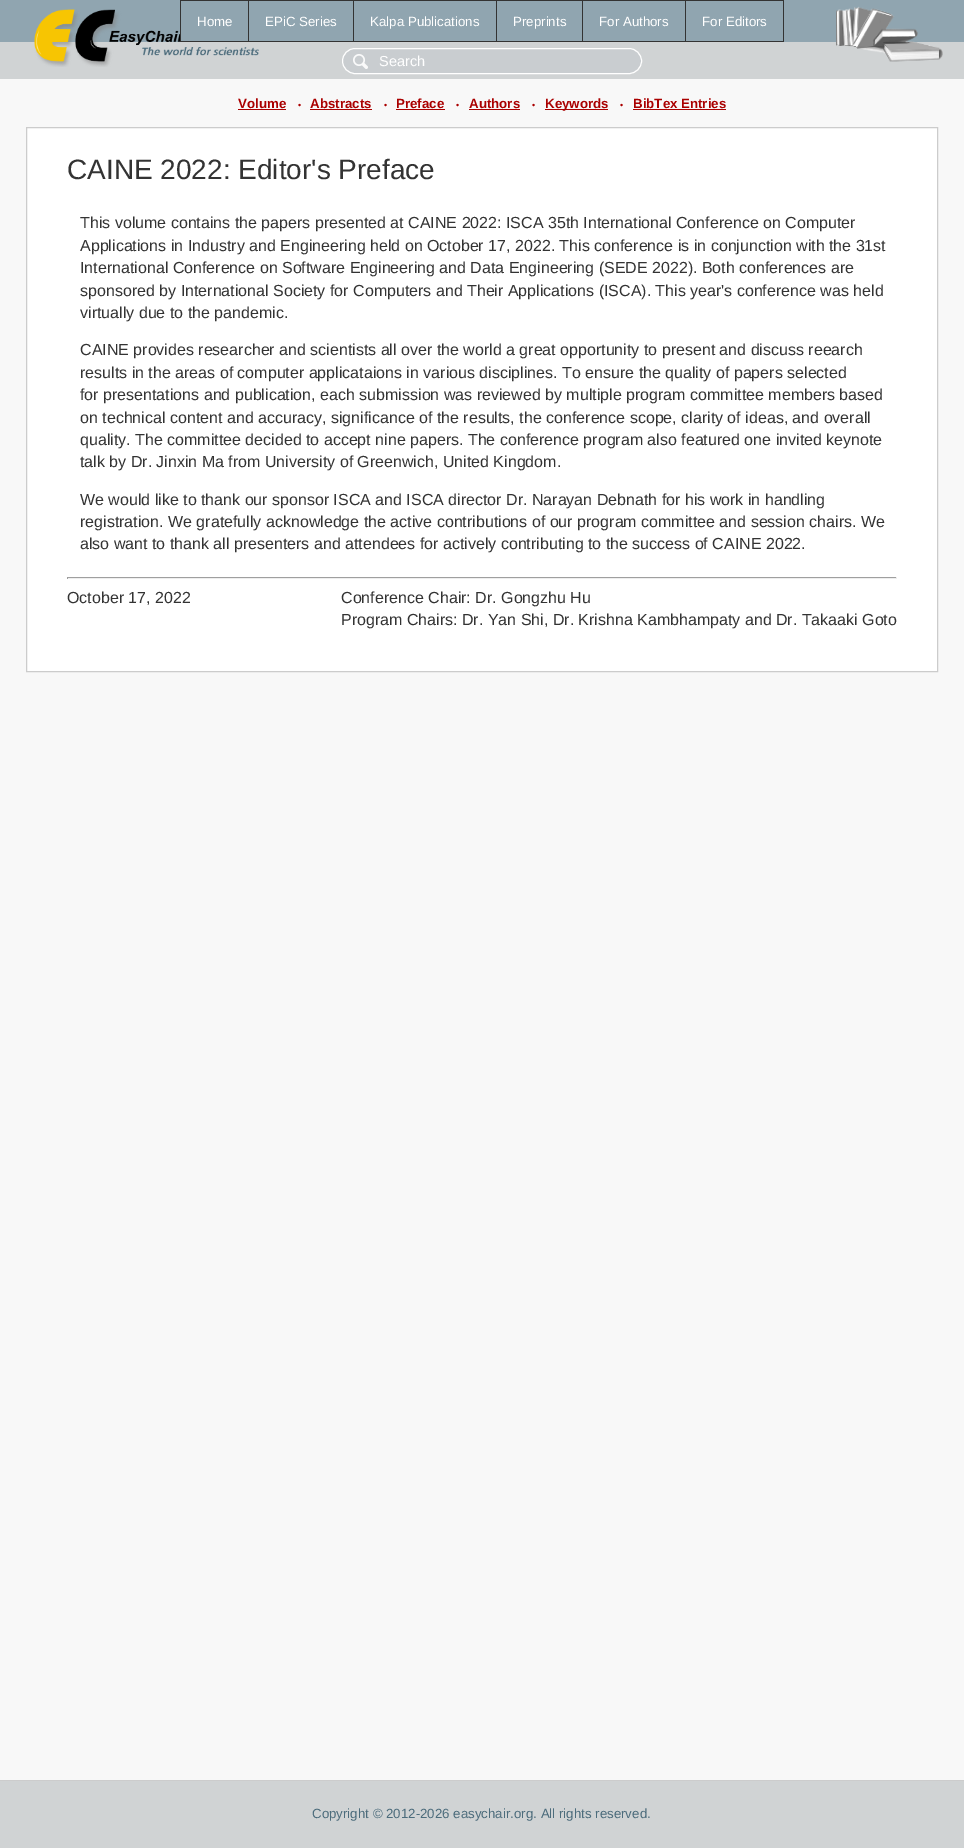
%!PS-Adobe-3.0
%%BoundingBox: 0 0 964 1848
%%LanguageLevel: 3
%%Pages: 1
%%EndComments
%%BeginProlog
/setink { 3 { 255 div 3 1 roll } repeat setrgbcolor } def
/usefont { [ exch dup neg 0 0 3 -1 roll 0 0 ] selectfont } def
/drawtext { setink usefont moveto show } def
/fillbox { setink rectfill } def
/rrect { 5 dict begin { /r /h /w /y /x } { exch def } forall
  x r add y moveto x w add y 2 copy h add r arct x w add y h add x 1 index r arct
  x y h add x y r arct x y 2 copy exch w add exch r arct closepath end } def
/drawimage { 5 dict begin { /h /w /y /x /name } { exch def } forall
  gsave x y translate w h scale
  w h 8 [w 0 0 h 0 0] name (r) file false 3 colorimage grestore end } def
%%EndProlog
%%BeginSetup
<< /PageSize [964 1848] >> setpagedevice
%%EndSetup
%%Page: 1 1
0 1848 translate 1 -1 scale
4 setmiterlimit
0 0 964 1848 144 165 176 fillbox
0 43 963 35 208 211 212 fillbox
0 42 964 1 208 211 212 fillbox
(assets/img1.rgb) 34 9 225 58 drawimage
685 0 99 1 51 51 51 fillbox
783 0 1 42 51 51 51 fillbox
685 41 99 1 51 51 51 fillbox
685 0 1 42 51 51 51 fillbox
582 0 104 1 51 51 51 fillbox
582 41 104 1 51 51 51 fillbox
582 0 1 42 51 51 51 fillbox
496 0 87 1 51 51 51 fillbox
496 41 87 1 51 51 51 fillbox
496 0 1 42 51 51 51 fillbox
353 0 144 1 51 51 51 fillbox
353 41 144 1 51 51 51 fillbox
353 0 1 42 51 51 51 fillbox
248 0 106 1 51 51 51 fillbox
248 41 106 1 51 51 51 fillbox
248 0 1 42 51 51 51 fillbox
180 0 69 1 51 51 51 fillbox
180 41 69 1 51 51 51 fillbox
180 0 1 42 51 51 51 fillbox
181 33 4 5 144 165 176 fillbox
(Home) 197 26 /LiberationSans-Regular 13.3 255 255 255 drawtext
(EPiC Series) 265 26 /LiberationSans-Regular 13.3 255 255 255 drawtext
(Kalpa Publications) 370 26 /LiberationSans-Regular 13.3 255 255 255 drawtext
(Preprints) 513 26 /LiberationSans-Regular 13.3 255 255 255 drawtext
(For Authors) 599 26 /LiberationSans-Regular 13.3 255 255 255 drawtext
(For Editors) 702 26 /LiberationSans-Regular 13.3 255 255 255 drawtext
(assets/img2.rgb) 836 6 107 56 drawimage
963 42 1 37 208 211 212 fillbox
0 78 964 1 208 211 212 fillbox
201 205 208 setink
342 48 300 26 13 rrect fill
(assets/img3.rgb) 353 54 15 15 drawimage
255 255 255 setink
342.5 48.5 299 25 12.5 rrect stroke
(Search) 379 66 /LiberationSans-Regular 14.5 255 255 255 drawtext
0 79 964 1701 248 248 248 fillbox
(Volume) 238 108 /LiberationSans-Bold 13.3 170 0 0 drawtext
238 109 48 1 170 0 0 fillbox
(•) 298 108 /LiberationSans-Regular 9 170 0 0 drawtext
(Abstracts) 310 108 /LiberationSans-Bold 13.3 170 0 0 drawtext
310 109 62 1 170 0 0 fillbox
(•) 384 108 /LiberationSans-Regular 9 170 0 0 drawtext
(Preface) 396 108 /LiberationSans-Bold 13.3 170 0 0 drawtext
396 109 49 1 170 0 0 fillbox
(•) 456 108 /LiberationSans-Regular 9 170 0 0 drawtext
(Authors) 469 108 /LiberationSans-Bold 13.3 170 0 0 drawtext
469 109 51 1 170 0 0 fillbox
(•) 532 108 /LiberationSans-Regular 9 170 0 0 drawtext
545 109 63 1 170 0 0 fillbox
(Keywords) 545 108 /LiberationSans-Bold 13.3 170 0 0 drawtext
(•) 620 108 /LiberationSans-Regular 9 170 0 0 drawtext
(BibTex Entries) 633 108 /LiberationSans-Bold 13.3 170 0 0 drawtext
633 109 93 1 170 0 0 fillbox
255 255 255 setink
26.5 127.5 moveto 937.5 127.5 lineto 937.5 671.5 lineto 26.5 671.5 lineto closepath gsave fill grestore
204 204 204 setink
stroke
(CAINE 2022: Editor's Preface) 67 179 /LiberationSans-Regular 28 51 51 51 drawtext
(This volume contains the papers presented at CAINE 2022: ISCA 35th International Conference on Computer) 80 228 /LiberationSans-Regular 16 51 51 51 drawtext
(Applications in Industry and Engineering held on October 17, 2022. This conference is in conjunction with the 31st) 80 251 /LiberationSans-Regular 16 51 51 51 drawtext
(International Conference on Software Engineering and Data Engineering \(SEDE 2022\). Both conferences are) 80 273 /LiberationSans-Regular 16 51 51 51 drawtext
(sponsored by International Society for Computers and Their Applications \(ISCA\). This year's conference was held) 80 296 /LiberationSans-Regular 16 51 51 51 drawtext
(virtually due to the pandemic.) 80 318 /LiberationSans-Regular 16 51 51 51 drawtext
(CAINE provides researcher and scientists all over the world a great opportunity to present and discuss reearch) 80 355 /LiberationSans-Regular 16 51 51 51 drawtext
(results in the areas of computer applicataions in various disciplines. To ensure the quality of papers selected) 80 378 /LiberationSans-Regular 16 51 51 51 drawtext
(for presentations and publication, each submission was reviewed by multiple program committee members based) 80 400 /LiberationSans-Regular 16 51 51 51 drawtext
(on technical content and accuracy, significance of the results, the conference scope, clarity of ideas, and overall) 80 423 /LiberationSans-Regular 16 51 51 51 drawtext
(quality. The committee decided to accept nine papers. The conference program also featured one invited keynote) 80 445 /LiberationSans-Regular 16 51 51 51 drawtext
(talk by Dr. Jinxin Ma from University of Greenwich, United Kingdom.) 80 467 /LiberationSans-Regular 16 51 51 51 drawtext
(We would like to thank our sponsor ISCA and ISCA director Dr. Narayan Debnath for his work in handling) 80 505 /LiberationSans-Regular 16 51 51 51 drawtext
(registration. We gratefully acknowledge the active contributions of our program committee and session chairs. We) 80 527 /LiberationSans-Regular 16 51 51 51 drawtext
(also want to thank all presenters and attendees for actively contributing to the success of CAINE 2022.) 80 549 /LiberationSans-Regular 16 51 51 51 drawtext
67 577 830 1 159 159 159 fillbox
896 577 1 2 238 238 238 fillbox
67 578 830 1 238 238 238 fillbox
67 577 1 2 159 159 159 fillbox
(October 17, 2022) 67 603 /LiberationSans-Regular 16 51 51 51 drawtext
(Conference Chair: Dr. Gongzhu Hu) 341 603 /LiberationSans-Regular 16 51 51 51 drawtext
(Program Chairs: Dr. Yan Shi, Dr. Krishna Kambhampaty and Dr. Takaaki Goto) 341 625 /LiberationSans-Regular 16 51 51 51 drawtext
0 1781 964 67 208 211 212 fillbox
0 1780 964 1 204 204 204 fillbox
(Copyright © 2012-2026 easychair.org. All rights reserved.) 312 1818 /LiberationSans-Regular 13.3 76 108 124 drawtext
showpage
%%EOF
